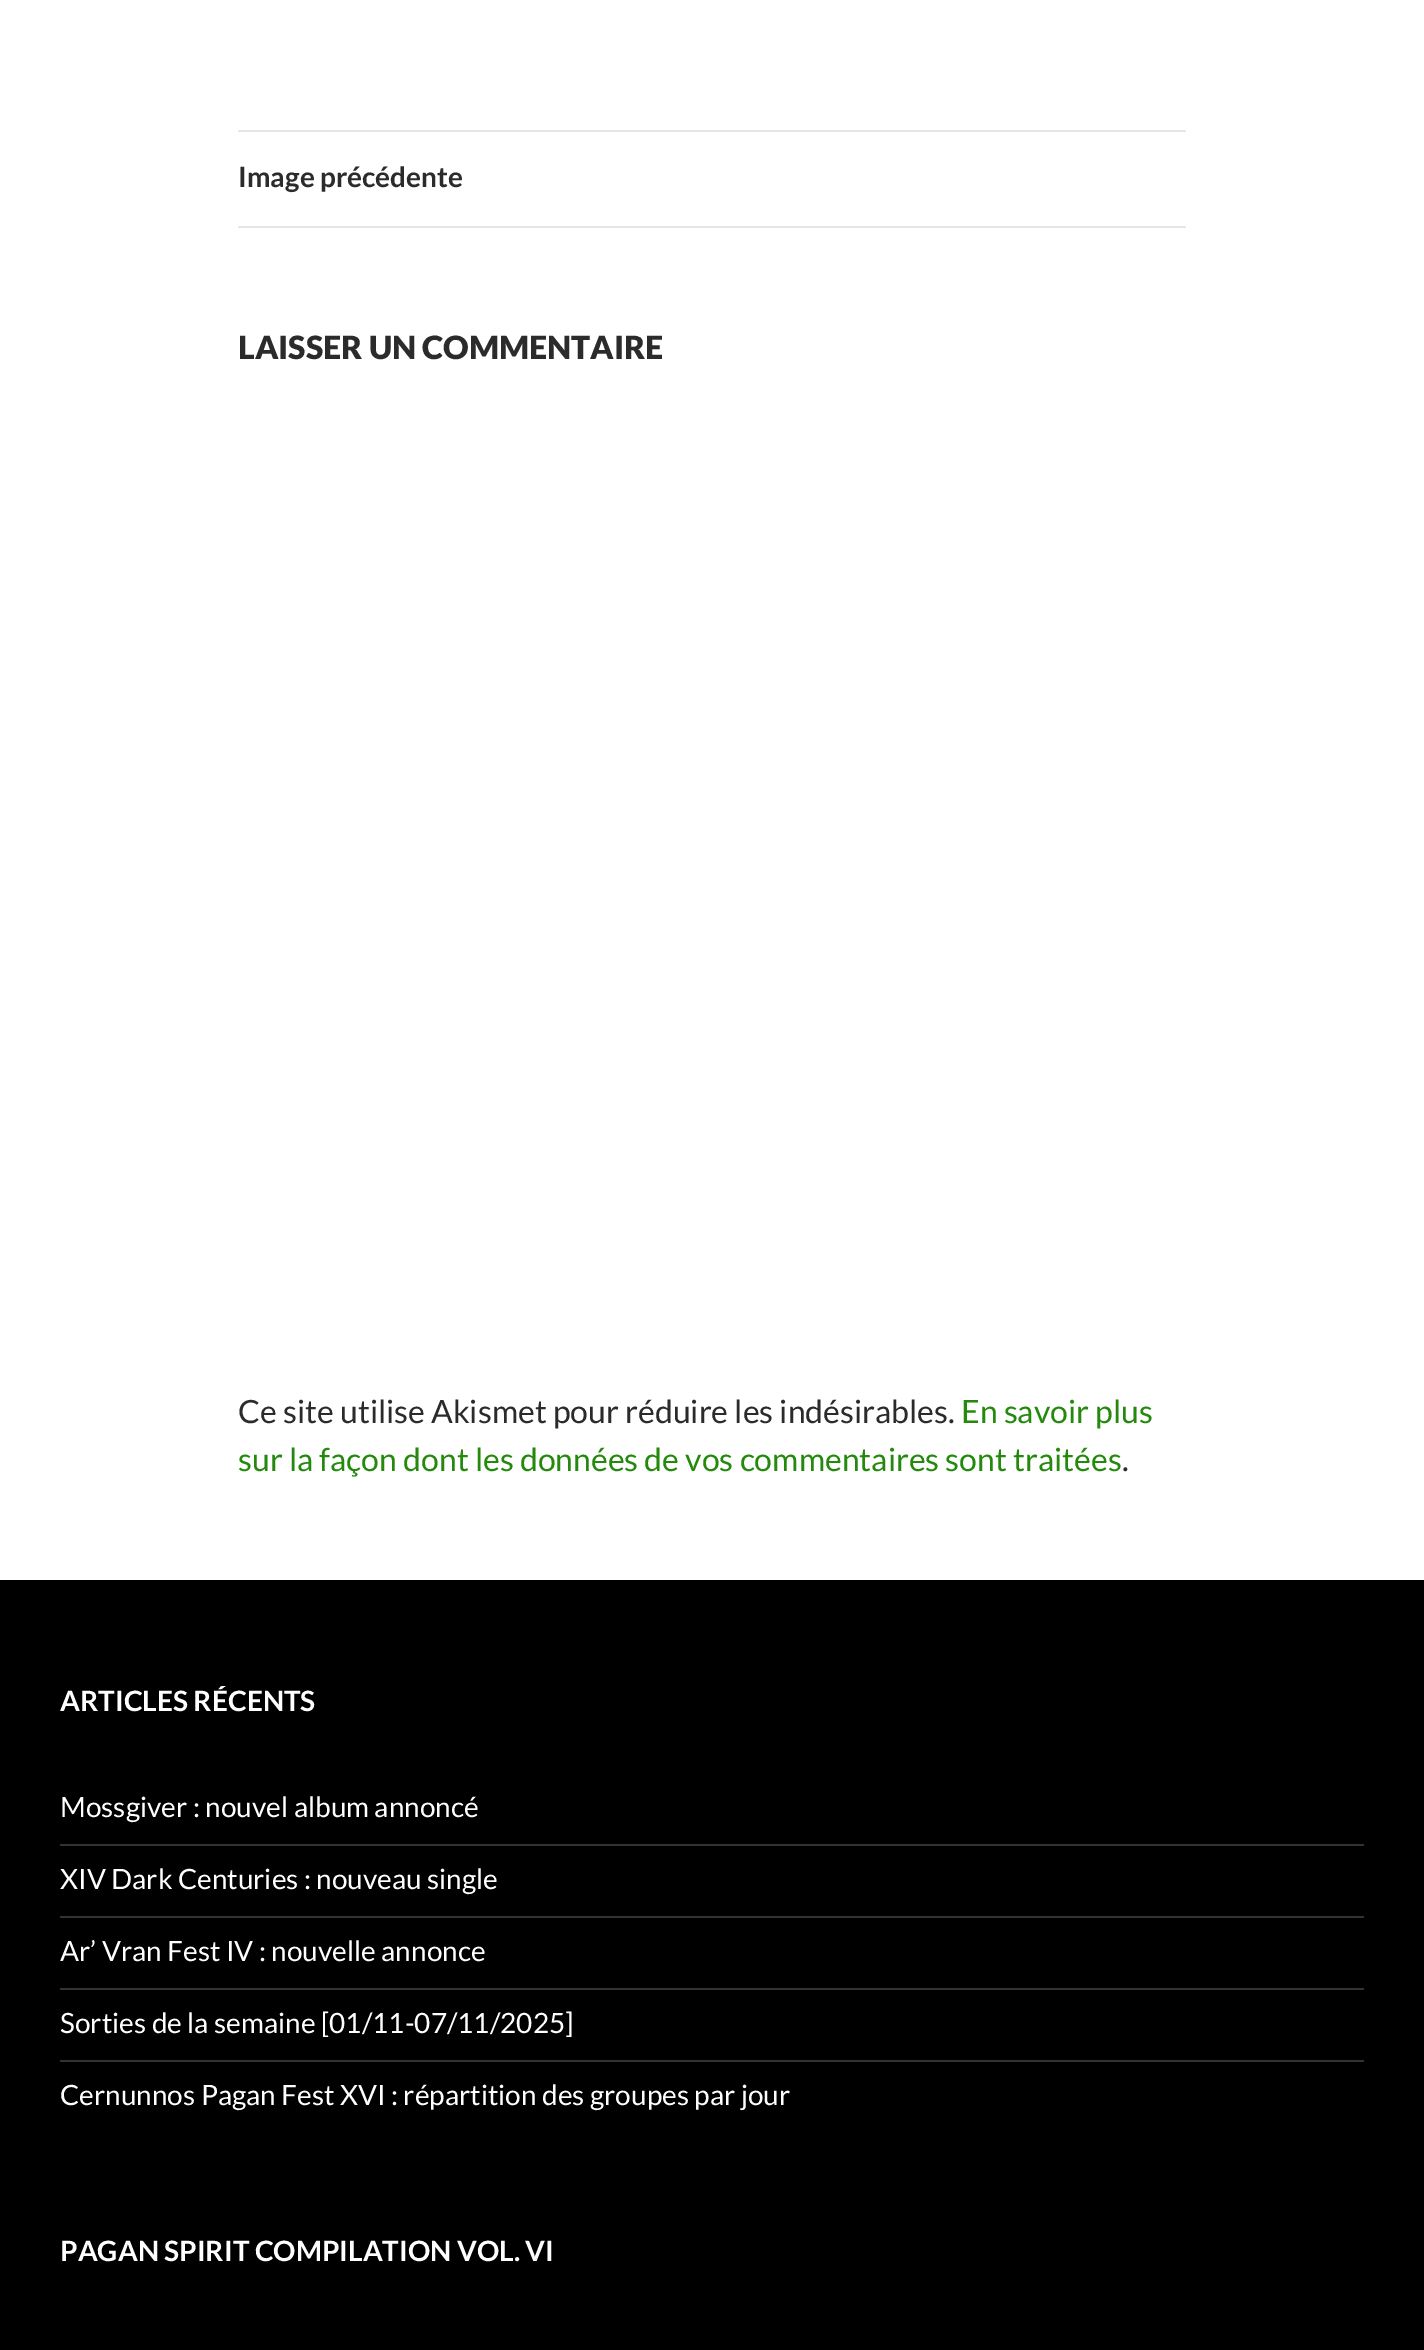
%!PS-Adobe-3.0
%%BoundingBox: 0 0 1424 2350
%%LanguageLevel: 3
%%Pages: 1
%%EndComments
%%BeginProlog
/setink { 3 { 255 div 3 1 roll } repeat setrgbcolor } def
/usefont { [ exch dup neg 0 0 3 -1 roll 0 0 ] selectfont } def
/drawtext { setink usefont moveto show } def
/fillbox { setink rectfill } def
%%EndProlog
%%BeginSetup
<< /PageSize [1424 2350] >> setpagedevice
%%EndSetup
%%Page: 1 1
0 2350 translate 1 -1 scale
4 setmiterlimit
0 0 1424 2350 255 255 255 fillbox
238 130 948 2 230 230 230 fillbox
238 226 948 2 230 230 230 fillbox
(Image précédente) 238 187 /Lato-Bold 28 43 43 43 drawtext
(LAISSER UN COMMENTAIRE) 238 359 /Lato-Black 32 43 43 43 drawtext
(Ce site utilise Akismet pour réduire les indésirables.) 238 1423 /Lato-Regular 32 43 43 43 drawtext
(En savoir plus) 961 1423 /Lato-Regular 32 36 137 13 drawtext
(sur la façon dont les données de vos commentaires sont traitées) 238 1471 /Lato-Regular 32 36 137 13 drawtext
(.) 1122 1471 /Lato-Regular 32 43 43 43 drawtext
0 1580 1424 770 0 0 0 fillbox
(ARTICLES RÉCENTS) 60 1711 /Lato-Bold 28 255 255 255 drawtext
(Mossgiver : nouvel album annoncé) 60 1817 /Lato-Regular 28 255 255 255 drawtext
60 1844 1304 2 51 51 51 fillbox
(XIV Dark Centuries : nouveau single) 60 1889 /Lato-Regular 28 255 255 255 drawtext
60 1916 1304 2 51 51 51 fillbox
(Ar’ Vran Fest IV : nouvelle annonce) 60 1961 /Lato-Regular 28 255 255 255 drawtext
60 1988 1304 2 51 51 51 fillbox
(Sorties de la semaine [01/11-07/11/2025]) 60 2033 /Lato-Regular 28 255 255 255 drawtext
60 2060 1304 2 51 51 51 fillbox
(Cernunnos Pagan Fest XVI : répartition des groupes par jour) 60 2105 /Lato-Regular 28 255 255 255 drawtext
(PAGAN SPIRIT COMPILATION VOL. VI) 60 2261 /Lato-Bold 28 255 255 255 drawtext
showpage
%%EOF
